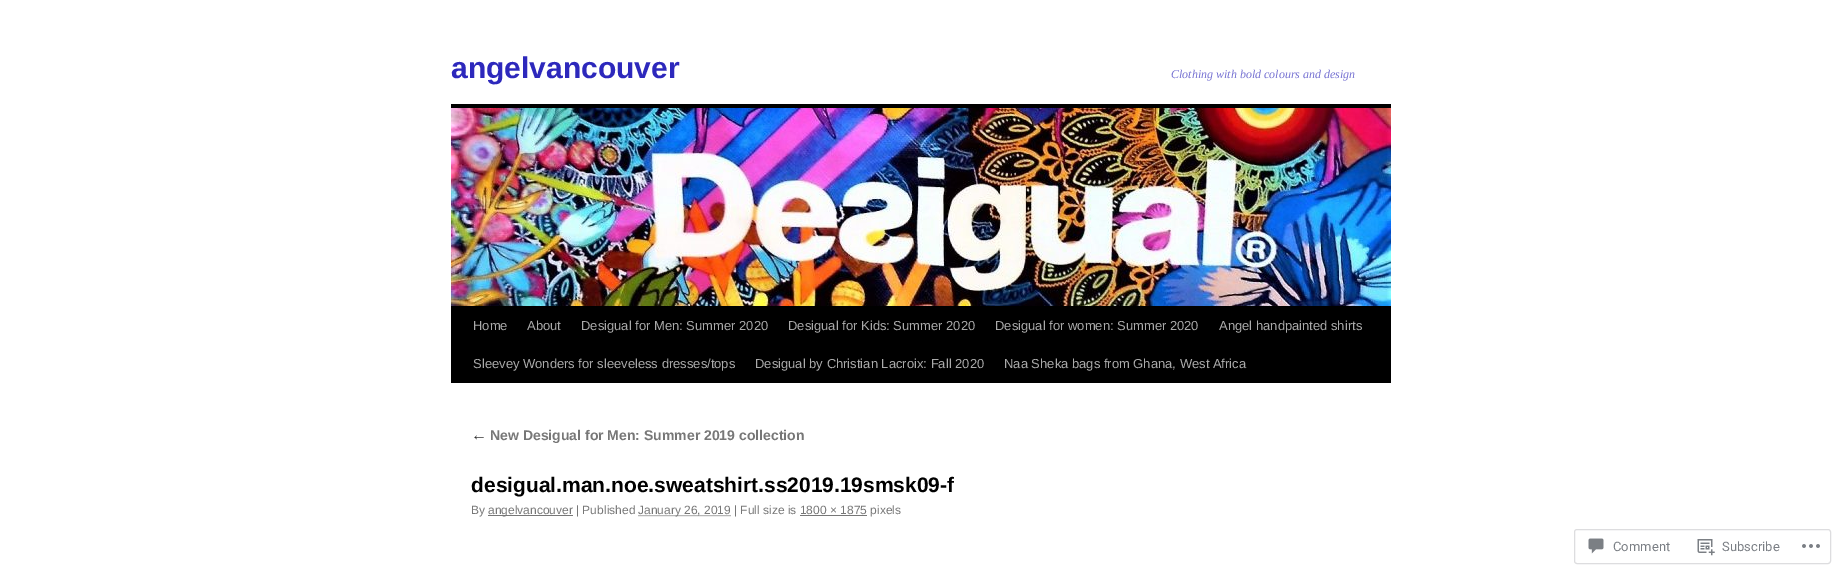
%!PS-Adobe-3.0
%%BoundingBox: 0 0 1841 574
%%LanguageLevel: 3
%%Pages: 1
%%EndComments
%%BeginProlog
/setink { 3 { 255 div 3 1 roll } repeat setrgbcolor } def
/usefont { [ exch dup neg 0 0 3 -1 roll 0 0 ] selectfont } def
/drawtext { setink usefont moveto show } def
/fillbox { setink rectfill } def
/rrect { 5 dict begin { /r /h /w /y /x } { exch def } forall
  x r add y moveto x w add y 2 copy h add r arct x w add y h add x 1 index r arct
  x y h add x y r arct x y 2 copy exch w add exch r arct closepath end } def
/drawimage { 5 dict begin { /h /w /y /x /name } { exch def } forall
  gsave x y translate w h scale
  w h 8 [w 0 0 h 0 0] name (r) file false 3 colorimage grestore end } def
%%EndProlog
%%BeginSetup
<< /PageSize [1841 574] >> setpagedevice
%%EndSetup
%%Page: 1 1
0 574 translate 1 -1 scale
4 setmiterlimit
0 0 1841 574 255 255 255 fillbox
(angelvancouver) 451 78 /LiberationSans-Bold 30 45 40 188 drawtext
(Clothing with bold colours and design) 1171 78 /LiberationSerif-Italic 12 119 115 211 drawtext
451 104 940 4 0 0 0 fillbox
451 306 940 77 0 0 0 fillbox
(assets/img1.rgb) 451 108 940 198 drawimage
(Home) 473 330 /LiberationSans-Regular 13 170 170 170 drawtext
(About) 527 330 /LiberationSans-Regular 13 170 170 170 drawtext
(Desigual for Men: Summer 2020) 581 330 /LiberationSans-Regular 13 170 170 170 drawtext
(Desigual for Kids: Summer 2020) 788 330 /LiberationSans-Regular 13 170 170 170 drawtext
(Desigual for women: Summer 2020) 995 330 /LiberationSans-Regular 13 170 170 170 drawtext
(Angel handpainted shirts) 1219 330 /LiberationSans-Regular 13 170 170 170 drawtext
(Sleevey Wonders for sleeveless dresses/tops) 473 368 /LiberationSans-Regular 13 170 170 170 drawtext
(Desigual by Christian Lacroix: Fall 2020) 755 368 /LiberationSans-Regular 13 170 170 170 drawtext
(Naa Sheka bags from Ghana, West Africa) 1004 368 /LiberationSans-Regular 13 170 170 170 drawtext
(←) 471 440 /LiberationSerif-Italic 16 51 51 51 drawtext
(New Desigual for Men: Summer 2019 collection) 490 440 /LiberationSans-Bold 14 119 119 119 drawtext
(desigual.man.noe.sweatshirt.ss2019.19smsk09-f) 471 492 /LiberationSans-Bold 21 0 0 0 drawtext
(By) 471 514 /LiberationSans-Regular 12 119 119 119 drawtext
488 515 85 1 119 119 119 fillbox
(angelvancouver | Published) 488 514 /LiberationSans-Regular 12 119 119 119 drawtext
[1 1] 0 setdash
638.5 515.5 moveto 731 515.5 lineto stroke
(January 26, 2019 | Full size is 1800 × 1875 pixels) 638 514 /LiberationSans-Regular 12 119 119 119 drawtext
800 515 67 1 119 119 119 fillbox
221 221 223 setink
[] 0 setdash
1574.5 529.5 256 34 2.5 rrect stroke
(assets/img2.rgb) 1588 538 16 16 drawimage
(Comment) 1613 551 /Roboto-Regular 13 123 127 133 drawtext
(assets/img3.rgb) 1697 539 18 17 drawimage
(Subscribe) 1722 551 /Roboto-Regular 13 123 127 133 drawtext
(assets/img4.rgb) 1802 544 18 4 drawimage
showpage
%%EOF
